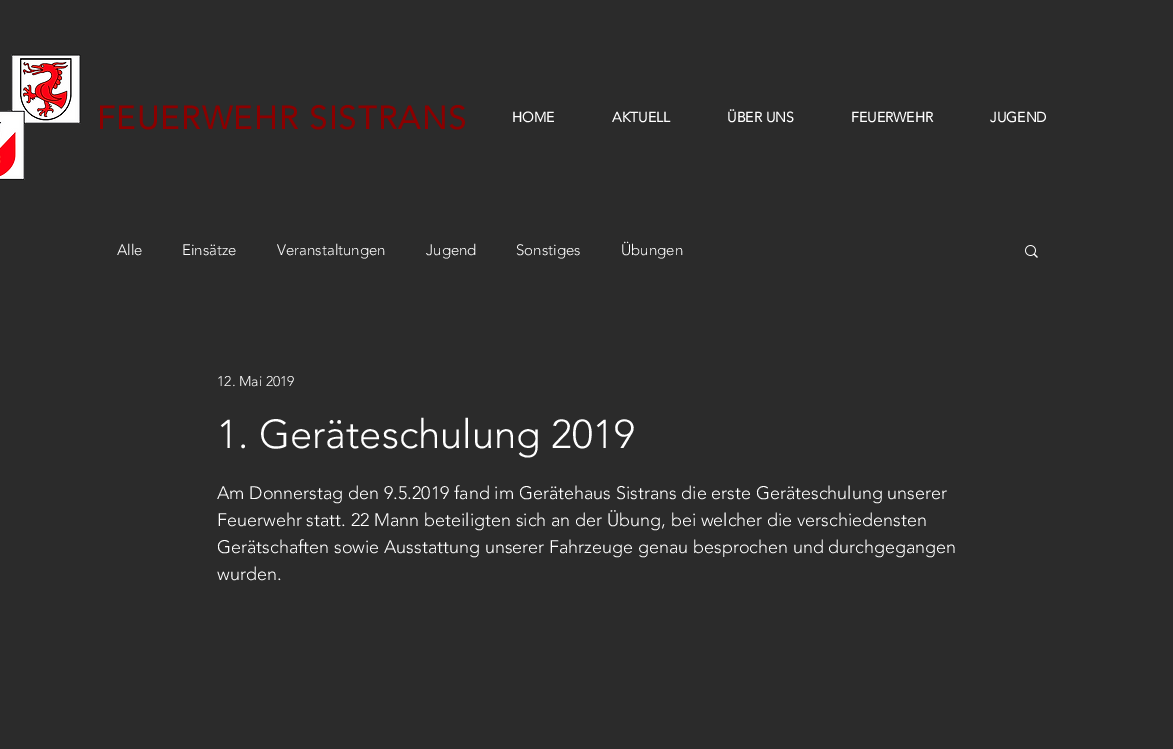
%!PS-Adobe-3.0
%%BoundingBox: 0 0 1173 749
%%LanguageLevel: 3
%%Pages: 1
%%EndComments
%%BeginProlog
/setink { 3 { 255 div 3 1 roll } repeat setrgbcolor } def
/usefont { [ exch dup neg 0 0 3 -1 roll 0 0 ] selectfont } def
/drawtext { setink usefont moveto show } def
/fillbox { setink rectfill } def
/drawimage { 5 dict begin { /h /w /y /x /name } { exch def } forall
  gsave x y translate w h scale
  w h 8 [w 0 0 h 0 0] name (r) file false 3 colorimage grestore end } def
%%EndProlog
%%BeginSetup
<< /PageSize [1173 749] >> setpagedevice
%%EndSetup
%%Page: 1 1
0 749 translate 1 -1 scale
4 setmiterlimit
0 0 1173 749 43 43 43 fillbox
(assets/img1.rgb) 0 54 81 126 drawimage
/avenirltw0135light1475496-Bold 32 usefont
139 0 0 setink
97 129 moveto 1.6 0 (FEUERWEHR SISTRANS) ashow
(HOME) 512 122 /avenirltw0135light1475496-Bold 14 255 255 255 drawtext
(AKTUELL) 612 122 /avenirltw0135light1475496-Bold 14 255 255 255 drawtext
(ÜBER UNS) 727 122 /avenirltw0135light1475496-Bold 14 255 255 255 drawtext
(FEUERWEHR) 851 122 /avenirltw0135light1475496-Bold 14 255 255 255 drawtext
(JUGEND) 990 122 /avenirltw0135light1475496-Bold 14 255 255 255 drawtext
(Alle) 117 255 /avenirltw0135light1475496-Light 15 255 255 255 drawtext
(Einsätze) 182 255 /avenirltw0135light1475496-Light 15 255 255 255 drawtext
(Veranstaltungen) 277 255 /avenirltw0135light1475496-Light 15 255 255 255 drawtext
(Jugend) 426 255 /avenirltw0135light1475496-Light 15 255 255 255 drawtext
(Sonstiges) 516 255 /avenirltw0135light1475496-Light 15 255 255 255 drawtext
(Übungen) 621 255 /avenirltw0135light1475496-Light 15 255 255 255 drawtext
(assets/img2.rgb) 1025 245 13 13 drawimage
(12. Mai 2019) 217 386 /avenirltw0135light1475496-Light 14 255 255 255 drawtext
(1. Geräteschulung 2019) 217 448 /avenirltw0135light1475496-Light 40 255 255 255 drawtext
(Am Donnerstag den 9.5.2019 fand im Gerätehaus Sistrans die erste Geräteschulung unserer) 217 499 /avenirltw0135light1475496-Light 18 255 255 255 drawtext
(Feuerwehr statt. 22 Mann beteiligten sich an der Übung, bei welcher die verschiedensten) 217 526 /avenirltw0135light1475496-Light 18 255 255 255 drawtext
(Gerätschaften sowie Ausstattung unserer Fahrzeuge genau besprochen und durchgegangen) 217 553 /avenirltw0135light1475496-Light 18 255 255 255 drawtext
(wurden.) 217 580 /avenirltw0135light1475496-Light 18 255 255 255 drawtext
showpage
%%EOF
